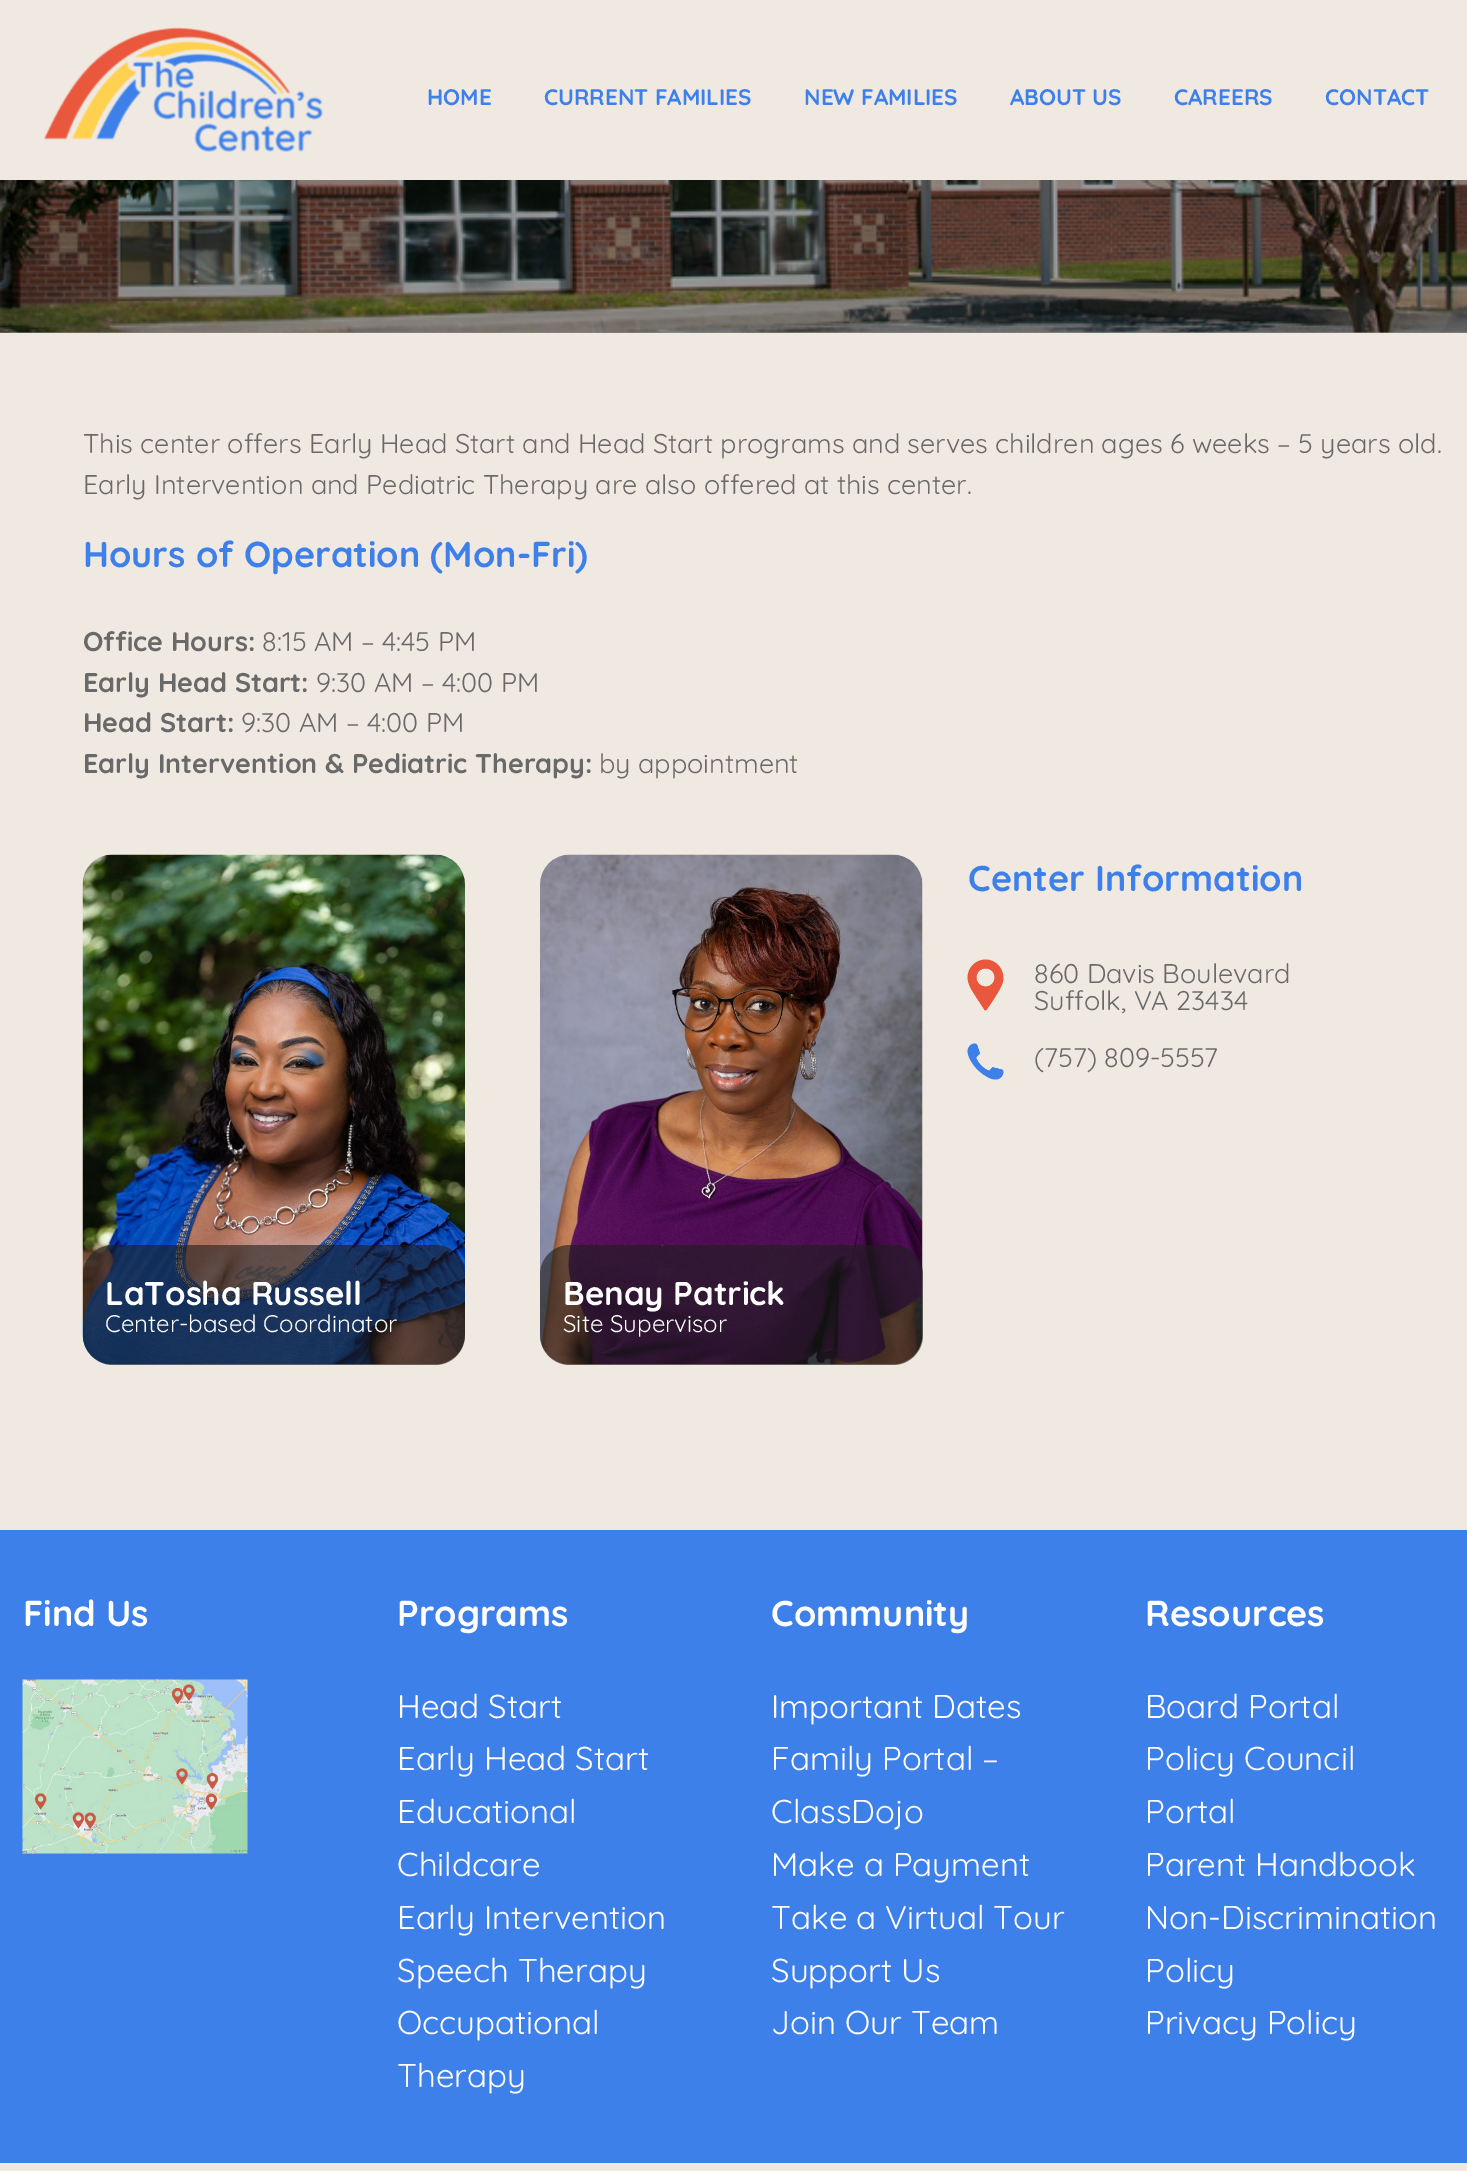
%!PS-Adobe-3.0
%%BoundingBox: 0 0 1467 2171
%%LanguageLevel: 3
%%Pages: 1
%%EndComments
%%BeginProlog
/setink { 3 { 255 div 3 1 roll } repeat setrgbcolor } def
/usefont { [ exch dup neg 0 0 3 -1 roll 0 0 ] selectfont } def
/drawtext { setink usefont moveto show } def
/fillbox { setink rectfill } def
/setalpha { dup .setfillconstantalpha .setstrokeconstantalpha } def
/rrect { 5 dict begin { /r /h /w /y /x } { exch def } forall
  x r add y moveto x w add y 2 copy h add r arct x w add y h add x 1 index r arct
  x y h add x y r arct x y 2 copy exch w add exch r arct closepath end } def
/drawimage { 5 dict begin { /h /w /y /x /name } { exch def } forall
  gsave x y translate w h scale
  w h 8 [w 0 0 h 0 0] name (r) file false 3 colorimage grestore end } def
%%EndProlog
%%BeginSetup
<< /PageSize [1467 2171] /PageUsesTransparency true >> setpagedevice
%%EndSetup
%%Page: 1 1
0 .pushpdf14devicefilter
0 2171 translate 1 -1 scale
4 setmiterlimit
0 0 1467 2171 240 233 226 fillbox
0 332 1467 1 151 147 142 fillbox
(assets/img1.rgb) 44 27 279 126 drawimage
(HOME) 427 105 /Quicksand-Bold 22.5 62 128 234 drawtext
(CURRENT FAMILIES) 544 105 /Quicksand-Bold 22.5 62 128 234 drawtext
(NEW FAMILIES) 804 105 /Quicksand-Bold 22.5 62 128 234 drawtext
(ABOUT US) 1010 105 /Quicksand-Bold 22.5 62 128 234 drawtext
(CAREERS) 1174 105 /Quicksand-Bold 22.5 62 128 234 drawtext
(CONTACT) 1325 105 /Quicksand-Bold 22.5 62 128 234 drawtext
(assets/img2.rgb) 0 180 1467 153 drawimage
(This center offers Early Head Start and Head Start programs and serves children ages 6 weeks – 5 years old.) 83 453 /Quicksand-Regular 27 105 105 105 drawtext
(Early Intervention and Pediatric Therapy are also offered at this center.) 83 494 /Quicksand-Regular 27 105 105 105 drawtext
(Hours of Operation \(Mon-Fri\)) 83 567 /Quicksand-Bold 36 62 128 234 drawtext
(Office Hours:) 83 651 /Quicksand-Bold 27 105 105 105 drawtext
(8:15 AM – 4:45 PM) 262 651 /Quicksand-Regular 27 105 105 105 drawtext
(Early Head Start:) 83 692 /Quicksand-Bold 27 105 105 105 drawtext
(9:30 AM – 4:00 PM) 316 692 /Quicksand-Regular 27 105 105 105 drawtext
(Head Start:) 83 732 /Quicksand-Bold 27 105 105 105 drawtext
(9:30 AM – 4:00 PM) 241 732 /Quicksand-Regular 27 105 105 105 drawtext
(Early Intervention & Pediatric Therapy:) 83 773 /Quicksand-Bold 27 105 105 105 drawtext
(by appointment) 599 773 /Quicksand-Regular 27 105 105 105 drawtext
(Center Information) 968 891 /Quicksand-Bold 36 62 128 234 drawtext
(assets/img3.rgb) 967 959 37 52 drawimage
(860 Davis Boulevard) 1034 983 /Quicksand-Regular 27 105 105 105 drawtext
(Suffolk, VA 23434) 1034 1010 /Quicksand-Regular 27 105 105 105 drawtext
(assets/img4.rgb) 967 1043 37 37 drawimage
(\(757\) 809-5557) 1034 1067 /Quicksand-Regular 27 105 105 105 drawtext
(assets/img5.rgb) 82 854 383 511 drawimage
0.6 setalpha
29 29 29 setink
83 1245 382 120 30 rrect fill
1 setalpha
(LaTosha Russell) 105 1305 /Quicksand-Bold 33 255 255 255 drawtext
(Center-based Coordinator) 105 1332 /Quicksand-Regular 24 255 255 255 drawtext
(assets/img6.rgb) 540 854 383 511 drawimage
0.6 setalpha
29 29 29 setink
540 1245 383 120 30 rrect fill
1 setalpha
(Benay Patrick) 563 1305 /Quicksand-Bold 33 255 255 255 drawtext
(Site Supervisor) 563 1332 /Quicksand-Regular 24 255 255 255 drawtext
0 1530 1467 633 62 128 234 fillbox
(Find Us) 23 1626 /Quicksand-Bold 36 255 255 255 drawtext
(assets/img7.rgb) 22 1679 226 175 drawimage
(Programs) 397 1626 /Quicksand-Bold 36 255 255 255 drawtext
(Head Start) 397 1718 /Quicksand-Regular 33 255 255 255 drawtext
(Early Head Start) 397 1770 /Quicksand-Regular 33 255 255 255 drawtext
(Educational) 397 1823 /Quicksand-Regular 33 255 255 255 drawtext
(Childcare) 397 1876 /Quicksand-Regular 33 255 255 255 drawtext
(Early Intervention) 397 1929 /Quicksand-Regular 33 255 255 255 drawtext
(Speech Therapy) 397 1982 /Quicksand-Regular 33 255 255 255 drawtext
(Occupational) 397 2034 /Quicksand-Regular 33 255 255 255 drawtext
(Therapy) 397 2087 /Quicksand-Regular 33 255 255 255 drawtext
(Community) 771 1626 /Quicksand-Bold 36 255 255 255 drawtext
(Important Dates) 771 1718 /Quicksand-Regular 33 255 255 255 drawtext
(Family Portal –) 771 1770 /Quicksand-Regular 33 255 255 255 drawtext
(ClassDojo) 771 1823 /Quicksand-Regular 33 255 255 255 drawtext
(Make a Payment) 771 1876 /Quicksand-Regular 33 255 255 255 drawtext
(Take a Virtual Tour) 771 1929 /Quicksand-Regular 33 255 255 255 drawtext
(Support Us) 771 1982 /Quicksand-Regular 33 255 255 255 drawtext
(Join Our Team) 771 2034 /Quicksand-Regular 33 255 255 255 drawtext
(Resources) 1145 1626 /Quicksand-Bold 36 255 255 255 drawtext
(Board Portal) 1145 1718 /Quicksand-Regular 33 255 255 255 drawtext
(Policy Council) 1145 1770 /Quicksand-Regular 33 255 255 255 drawtext
(Portal) 1145 1823 /Quicksand-Regular 33 255 255 255 drawtext
(Parent Handbook) 1145 1876 /Quicksand-Regular 33 255 255 255 drawtext
(Non-Discrimination) 1145 1929 /Quicksand-Regular 33 255 255 255 drawtext
(Policy) 1145 1982 /Quicksand-Regular 33 255 255 255 drawtext
(Privacy Policy) 1145 2034 /Quicksand-Regular 33 255 255 255 drawtext
.poppdf14devicefilter showpage
%%EOF
